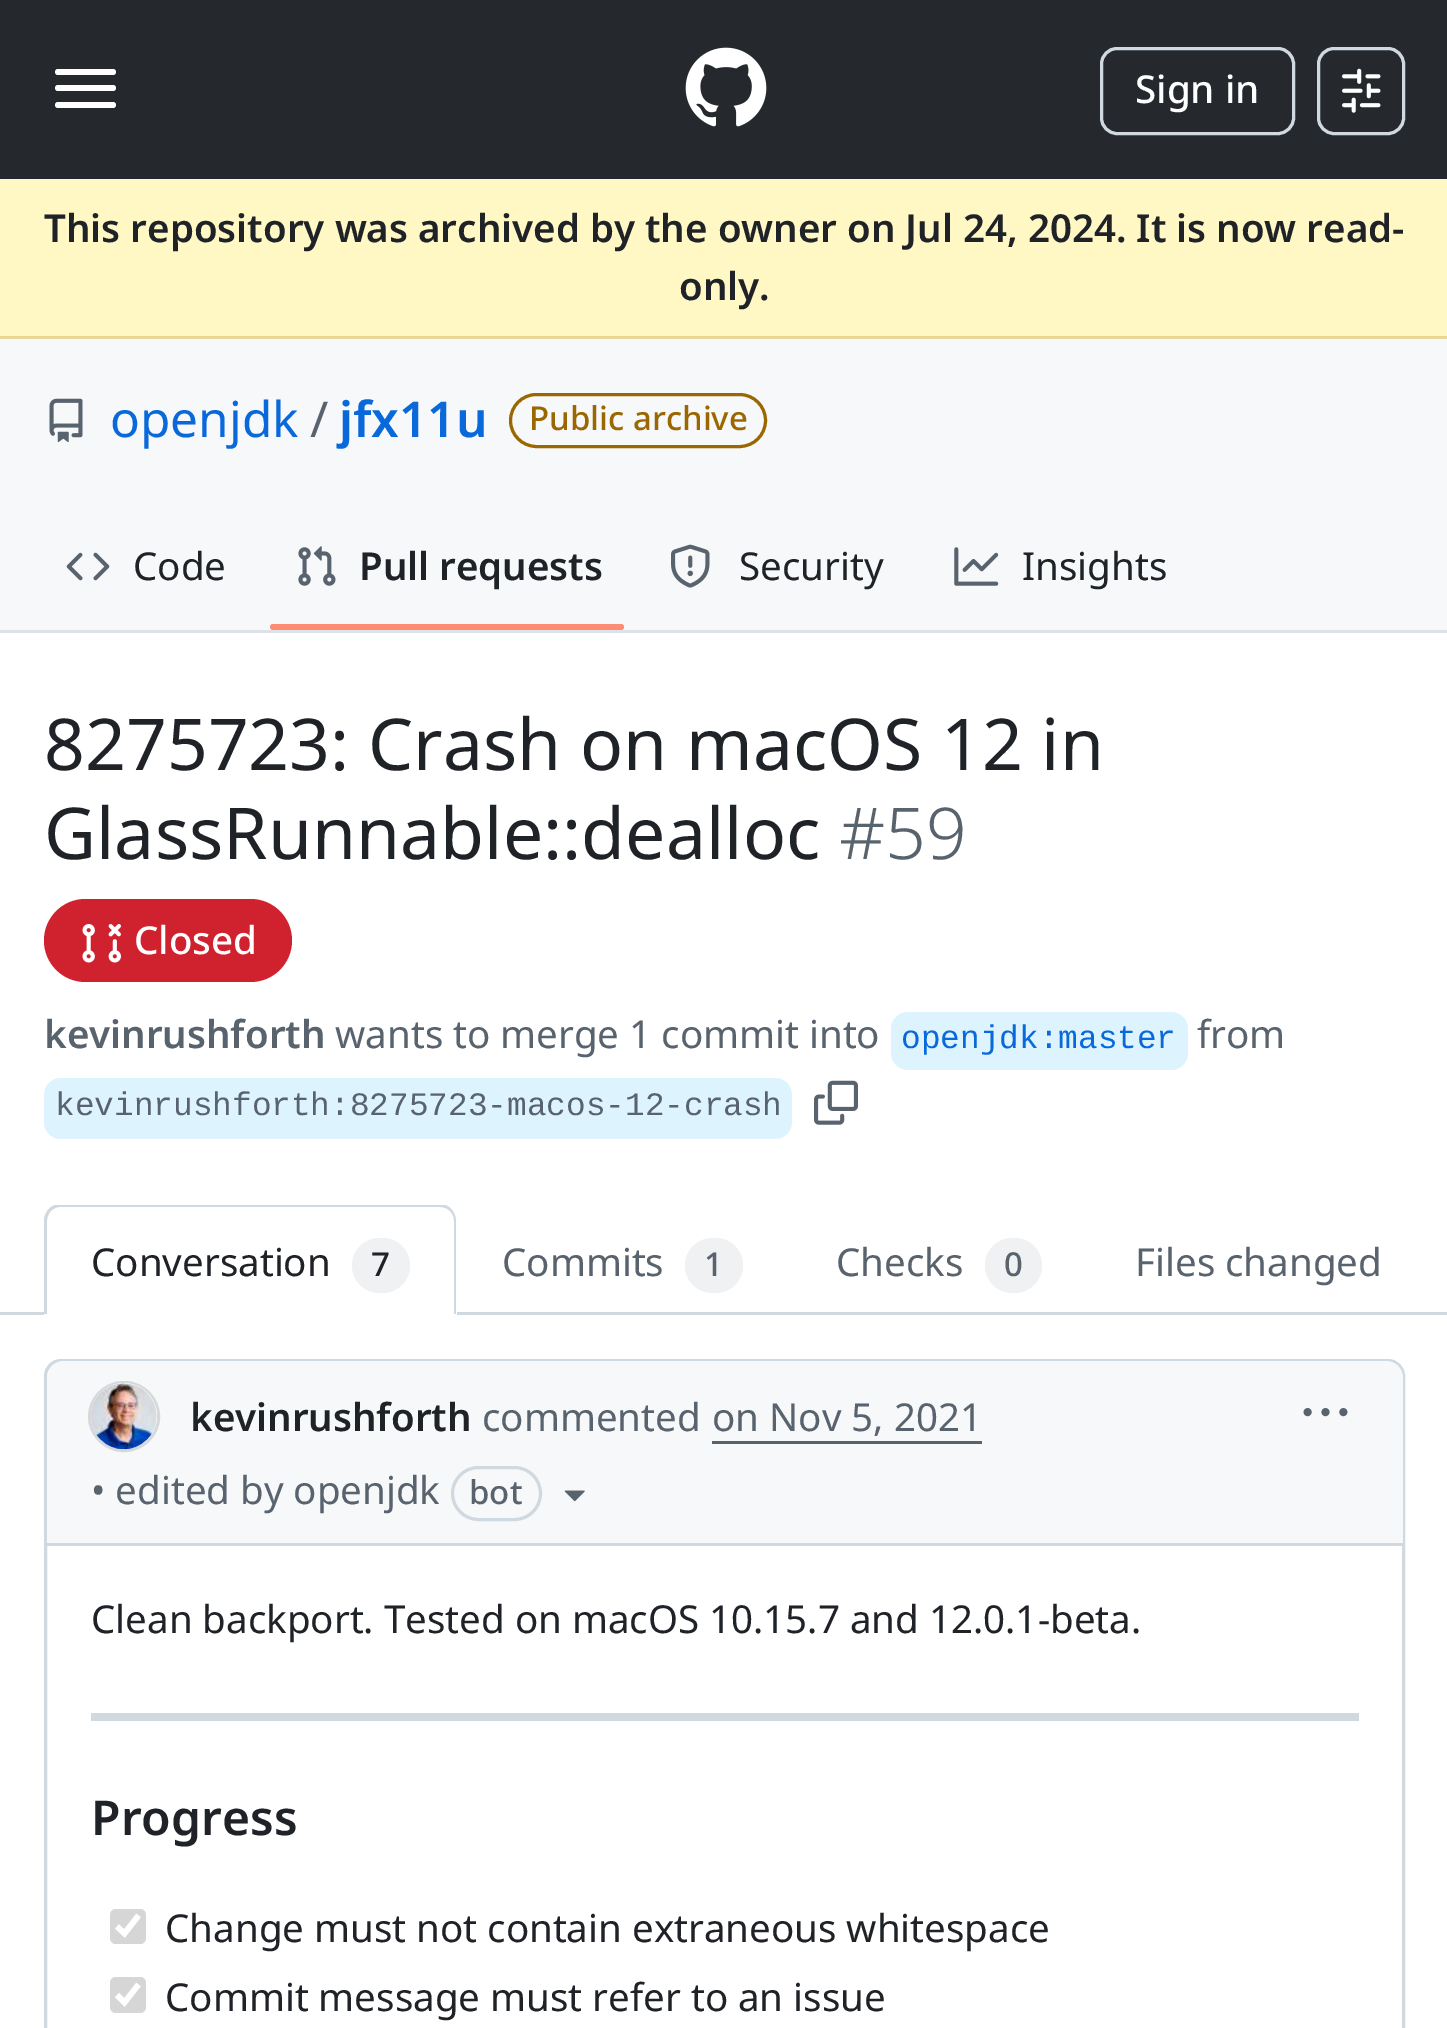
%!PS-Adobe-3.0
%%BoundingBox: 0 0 1447 2028
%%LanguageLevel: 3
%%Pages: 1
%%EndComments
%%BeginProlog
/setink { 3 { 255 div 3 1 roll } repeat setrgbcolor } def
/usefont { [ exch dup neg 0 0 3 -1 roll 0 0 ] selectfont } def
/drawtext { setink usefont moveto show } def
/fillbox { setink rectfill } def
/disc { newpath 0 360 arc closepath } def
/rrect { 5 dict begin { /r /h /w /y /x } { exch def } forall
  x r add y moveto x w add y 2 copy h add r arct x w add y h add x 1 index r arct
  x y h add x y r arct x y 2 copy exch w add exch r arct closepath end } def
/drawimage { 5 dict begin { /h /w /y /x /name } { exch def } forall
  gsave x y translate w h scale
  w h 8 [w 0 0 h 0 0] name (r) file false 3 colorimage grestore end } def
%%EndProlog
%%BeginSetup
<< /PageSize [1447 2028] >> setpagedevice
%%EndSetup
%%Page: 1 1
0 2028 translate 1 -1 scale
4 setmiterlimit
0 0 1447 2028 255 255 255 fillbox
0 0 1447 179 37 41 46 fillbox
255 255 255 setink
55 69 61 6 3 rrect fill
55 85 61 6 3 rrect fill
55 102 61 6 3 rrect fill
(assets/img1.rgb) 685 47 82 80 drawimage
209 217 224 setink
3 setlinewidth
1101.5 48.5 192 85 15.5 rrect stroke
(Sign in) 1135 103 /NotoSans-Medium 38.5 255 255 255 drawtext
209 217 224 setink
1318.5 48.5 85 85 15.5 rrect stroke
(assets/img2.rgb) 1342 68 39 45 drawimage
0 179 1447 157 255 248 197 fillbox
0 336 1447 2 238 216 136 fillbox
(This repository was archived by the owner on Jul 24, 2024. It is now read-) 44 242 /NotoSans-SemiBold 38.5 31 35 40 drawtext
(only.) 679 300 /NotoSans-SemiBold 38.5 31 35 40 drawtext
0 339 1447 291 246 248 250 fillbox
0 338 1447 1 232 216 168 fillbox
(assets/img3.rgb) 49 398 34 44 drawimage
(openjdk) 110 437 /NotoSans-Regular 49.5 9 105 218 drawtext
(/) 310 437 /NotoSans-Regular 49.5 89 99 110 drawtext
(jfx11u) 339 437 /NotoSans-SemiBold 49.5 9 105 218 drawtext
154 103 0 setink
510.5 394.5 255 52 26 rrect stroke
(Public archive) 529 430 /NotoSans-Medium 33 154 103 0 drawtext
0 630 1447 3 220 226 232 fillbox
(assets/img4.rgb) 66 552 44 29 drawimage
(Code) 133 580 /NotoSans-Regular 38.5 31 35 40 drawtext
(assets/img5.rgb) 298 546 38 40 drawimage
(Pull requests) 359 580 /NotoSans-SemiBold 38.5 31 35 40 drawtext
253 140 115 setink
270 624 354 6 3 rrect fill
(assets/img6.rgb) 671 544 39 44 drawimage
(Security) 739 580 /NotoSans-Regular 38.5 31 35 40 drawtext
(assets/img7.rgb) 954 547 45 39 drawimage
(Insights) 1022 580 /NotoSans-Regular 38.5 31 35 40 drawtext
(8275723: Crash on macOS 12 in) 44 770 /NotoSans-Regular 71.5 31 35 40 drawtext
(GlassRunnable::dealloc) 44 859 /NotoSans-Regular 71.5 31 35 40 drawtext
(#59) 839 859 /NotoSans-Light 71.5 89 99 110 drawtext
207 34 46 setink
44 899 248 83 41.5 rrect fill
(assets/img8.rgb) 82 924 39 39 drawimage
(Closed) 134 954 /NotoSans-Medium 38.5 255 255 255 drawtext
(kevinrushforth) 44 1048 /NotoSans-SemiBold 38.5 89 99 110 drawtext
(wants to merge 1 commit into) 335 1048 /NotoSans-Regular 38.5 89 99 110 drawtext
221 244 255 setink
891 1012 297 58 17 rrect fill
(:) 1039 1048 /LiberationMono-Regular 32.75 9 105 218 drawtext
(openjdk master) 901 1048 /LiberationMono-Regular 32.75 9 105 218 drawtext
(from) 1197 1048 /NotoSans-Regular 38.5 89 99 110 drawtext
221 244 255 setink
44 1078 748 61 17 rrect fill
(:) 330 1115 /LiberationMono-Regular 32.75 89 99 110 drawtext
(kevinrushforth 8275723-macos-12-crash) 55 1115 /LiberationMono-Regular 32.75 89 99 110 drawtext
(assets/img9.rgb) 814 1080 44 45 drawimage
0 1312 1447 3 209 217 224 fillbox
255 255 255 setink
61 1205 moveto 440 1205 lineto 449.5 1205 457 1212.5 457 1222 curveto 457 1315 lineto 44 1315 lineto 44 1222 lineto 44 1212.5 51.5 1205 61 1205 curveto closepath fill
gsave
44 1205 1361 110 rectclip
209 217 224 setink
60 1204 moveto 440 1204 lineto 449 1204 456 1212 456 1221 curveto 456 1314 lineto 44 1314 lineto 44 1221 lineto 44 1212 51 1204 60 1204 curveto closepath 60 1207 moveto 440 1207 lineto 448 1207 454 1213 454 1221 curveto 454 1314 lineto 47 1314 lineto 47 1221 lineto 47 1213 53 1207 60 1207 curveto closepath eofill
grestore
(Conversation) 91 1276 /NotoSans-Regular 38.5 31 35 40 drawtext
240 241 243 setink
352 1238 58 55 27.5 rrect fill
(7) 371 1276 /NotoSans-Medium 33 31 35 40 drawtext
(Commits) 502 1276 /NotoSans-Regular 38.5 89 99 110 drawtext
240 241 243 setink
685 1238 58 55 27.5 rrect fill
(1) 704 1276 /NotoSans-Medium 33 89 99 110 drawtext
(Checks) 836 1276 /NotoSans-Regular 38.5 89 99 110 drawtext
240 241 243 setink
985 1238 57 55 27.5 rrect fill
(0) 1004 1276 /NotoSans-Medium 33 89 99 110 drawtext
(Files changed) 1135 1276 /NotoSans-Regular 38.5 89 99 110 drawtext
209 217 224 setink
45.5 1360.5 1358 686 15.5 rrect stroke
246 248 250 setink
64 1361 moveto 1386 1361 lineto 1395.5 1361 1403 1368.5 1403 1378 curveto 1403 1546 lineto 47 1546 lineto 47 1378 lineto 47 1368.5 54.5 1361 64 1361 curveto closepath fill
47 1543 1356 3 209 217 224 fillbox
214 216 219 setink
89.5 1382.5 69 68 34 rrect stroke
255 255 255 setink
124 1416 33 disc fill
(assets/img10.rgb) 91 1383 66 67 drawimage
(kevinrushforth) 190 1431 /NotoSans-SemiBold 38.5 31 35 40 drawtext
(commented) 482 1431 /NotoSans-Regular 38.5 89 99 110 drawtext
(on Nov 5, 2021) 712 1431 /NotoSans-Regular 38.5 89 99 110 drawtext
712 1441 270 3 89 99 110 fillbox
(• edited by openjdk) 91 1504 /NotoSans-Regular 38.5 89 99 110 drawtext
209 217 224 setink
452.5 1467.5 88 52 26 rrect stroke
(bot) 469 1504 /NotoSans-Medium 33 89 99 110 drawtext
(assets/img11.rgb) 564 1490 21 12 drawimage
(assets/img12.rgb) 1303 1408 45 9 drawimage
(Clean backport. Tested on macOS 10.15.7 and 12.0.1-beta.) 91 1633 /NotoSans-Regular 38.5 31 35 40 drawtext
91 1713 1268 8 209 217 224 fillbox
(Progress) 91 1835 /NotoSans-SemiBold 48 31 35 40 drawtext
214 214 214 setink
110 1909 36 35 6 rrect fill
255 255 255 setink
5.7 setlinewidth
117 1926.5 moveto 124.5 1933.5 lineto 138.5 1915.5 lineto stroke
(Change must not contain extraneous whitespace) 165 1942 /NotoSans-Regular 38.5 31 35 40 drawtext
214 214 214 setink
110 1977 36 36 6 rrect fill
255 255 255 setink
117 1995 moveto 124.5 2002.5 lineto 138.5 1984.5 lineto stroke
(Commit message must refer to an issue) 165 2011 /NotoSans-Regular 38.5 31 35 40 drawtext
showpage
%%EOF
